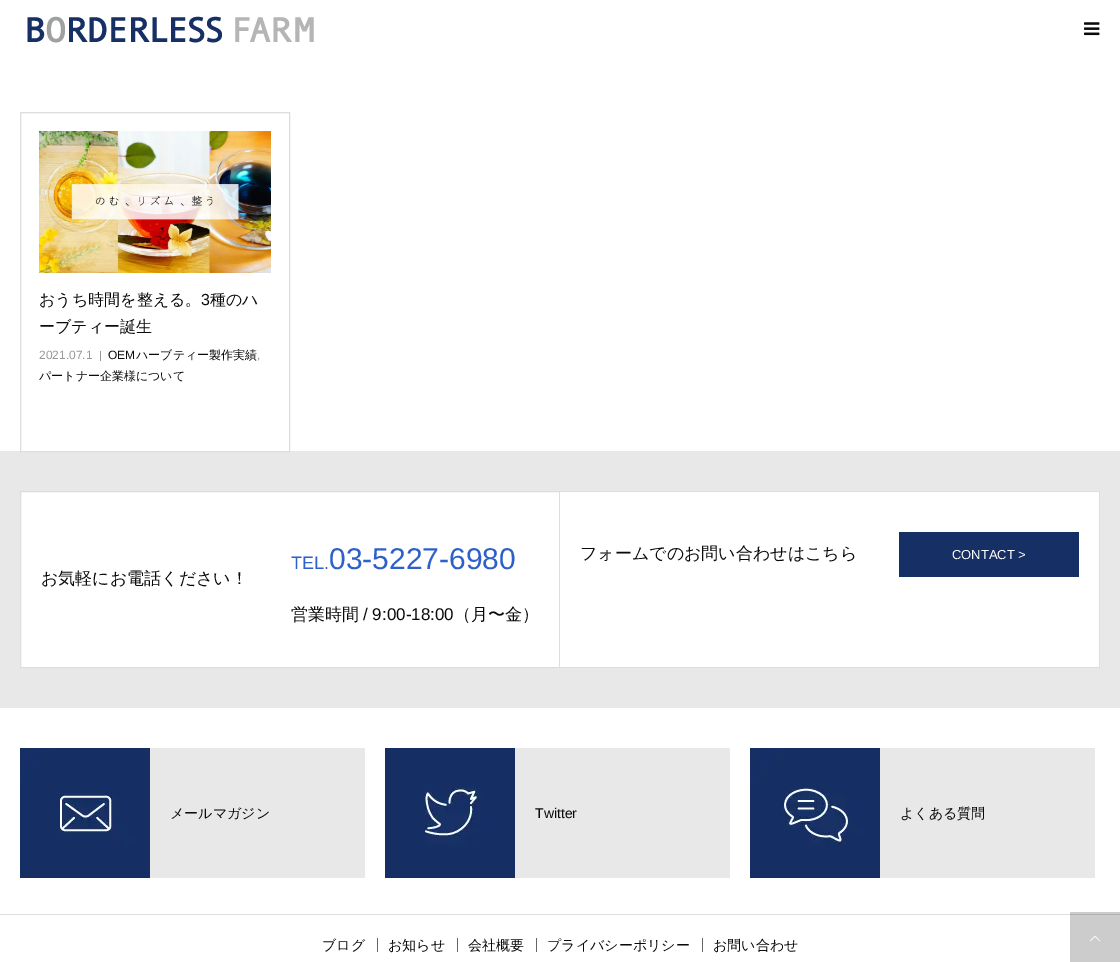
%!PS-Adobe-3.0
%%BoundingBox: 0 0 1120 962
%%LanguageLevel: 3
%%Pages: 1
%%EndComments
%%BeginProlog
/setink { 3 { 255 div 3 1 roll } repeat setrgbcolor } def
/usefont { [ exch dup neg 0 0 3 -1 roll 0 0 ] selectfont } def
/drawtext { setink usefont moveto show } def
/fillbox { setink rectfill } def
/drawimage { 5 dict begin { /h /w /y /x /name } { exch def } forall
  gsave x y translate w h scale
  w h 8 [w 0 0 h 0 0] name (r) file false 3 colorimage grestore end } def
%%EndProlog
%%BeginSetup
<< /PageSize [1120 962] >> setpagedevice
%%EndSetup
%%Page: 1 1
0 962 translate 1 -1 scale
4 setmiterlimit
0 0 1120 962 255 255 255 fillbox
(assets/img1.rgb) 27 16 287 27 drawimage
(assets/img2.rgb) 1084 22 16 14 drawimage
0 451 1120 257 232 232 232 fillbox
221 221 221 setink
20.5 112.5 269 339 rectstroke
(assets/img3.rgb) 39 131 232 142 drawimage
(おうち時間を整える。) 39 305 /WenQuanYiZenHei-Medium 16 10 10 10 drawtext
(3) 201 305 /LiberationSans-Regular 16 10 10 10 drawtext
(種のハ) 210 305 /WenQuanYiZenHei-Medium 16 10 10 10 drawtext
(ーブティー誕生) 39 332 /WenQuanYiZenHei-Medium 16 10 10 10 drawtext
(2021.07.1) 39 359 /LiberationSans-Regular 12 153 153 153 drawtext
100 351 1 10 153 153 153 fillbox
(OEM) 108 359 /LiberationSans-Regular 12 10 10 10 drawtext
(ハーブティー製作実績) 136 359 /WenQuanYiZenHei-Medium 12 10 10 10 drawtext
(,) 257 359 /LiberationSans-Regular 12 153 153 153 drawtext
(パートナー企業様について) 39 380 /WenQuanYiZenHei-Medium 12 10 10 10 drawtext
255 255 255 setink
20.5 491.5 moveto 559.5 491.5 lineto 559.5 667.5 lineto 20.5 667.5 lineto closepath gsave fill grestore
221 221 221 setink
stroke
(お気軽にお電話ください！) 41 584 /WenQuanYiZenHei-Medium 17 10 10 10 drawtext
(TEL.) 291 569 /LiberationSans-Regular 18 46 96 201 drawtext
(03-5227-6980) 329 569 /LiberationSans-Regular 30 46 96 201 drawtext
(営業時間) 291 620 /WenQuanYiZenHei-Medium 17 10 10 10 drawtext
(/ 9:00-18:00) 363 620 /LiberationSans-Regular 17 10 10 10 drawtext
(（月〜金）) 454 620 /WenQuanYiZenHei-Medium 17 10 10 10 drawtext
560 492 539 175 255 255 255 fillbox
560 491 540 1 221 221 221 fillbox
1099 491 1 177 221 221 221 fillbox
560 667 540 1 221 221 221 fillbox
(フォームでのお問い合わせはこちら) 580 559 /WenQuanYiZenHei-Medium 17 10 10 10 drawtext
899 532 180 45 22 48 101 fillbox
(CONTACT >) 952 559 /LiberationSans-Regular 13 255 255 255 drawtext
150 748 215 130 232 232 232 fillbox
(assets/img4.rgb) 20 748 130 130 drawimage
(メールマガジン) 170 818 /WenQuanYiZenHei-Medium 14 10 10 10 drawtext
515 748 215 130 232 232 232 fillbox
(assets/img5.rgb) 385 748 130 130 drawimage
(Twitter) 535 818 /LiberationSans-Regular 14 10 10 10 drawtext
880 748 215 130 232 232 232 fillbox
(assets/img6.rgb) 750 748 130 130 drawimage
(よくある質問) 900 818 /WenQuanYiZenHei-Medium 14 10 10 10 drawtext
0 914 1070 1 221 221 221 fillbox
1070 912 50 50 204 204 204 fillbox
1070 914 50 1 177 177 177 fillbox
377 938 1 14 102 102 102 fillbox
(ブログ) 322 950 /WenQuanYiZenHei-Medium 14 10 10 10 drawtext
457 938 1 14 102 102 102 fillbox
(お知らせ) 388 950 /WenQuanYiZenHei-Medium 14 10 10 10 drawtext
536 938 1 14 102 102 102 fillbox
(会社概要) 468 950 /WenQuanYiZenHei-Medium 14 10 10 10 drawtext
702 938 1 14 102 102 102 fillbox
(プライバシーポリシー) 547 950 /WenQuanYiZenHei-Medium 14 10 10 10 drawtext
(お問い合わせ) 713 950 /WenQuanYiZenHei-Medium 14 10 10 10 drawtext
(assets/img7.rgb) 1090 936 10 6 drawimage
showpage
%%EOF
